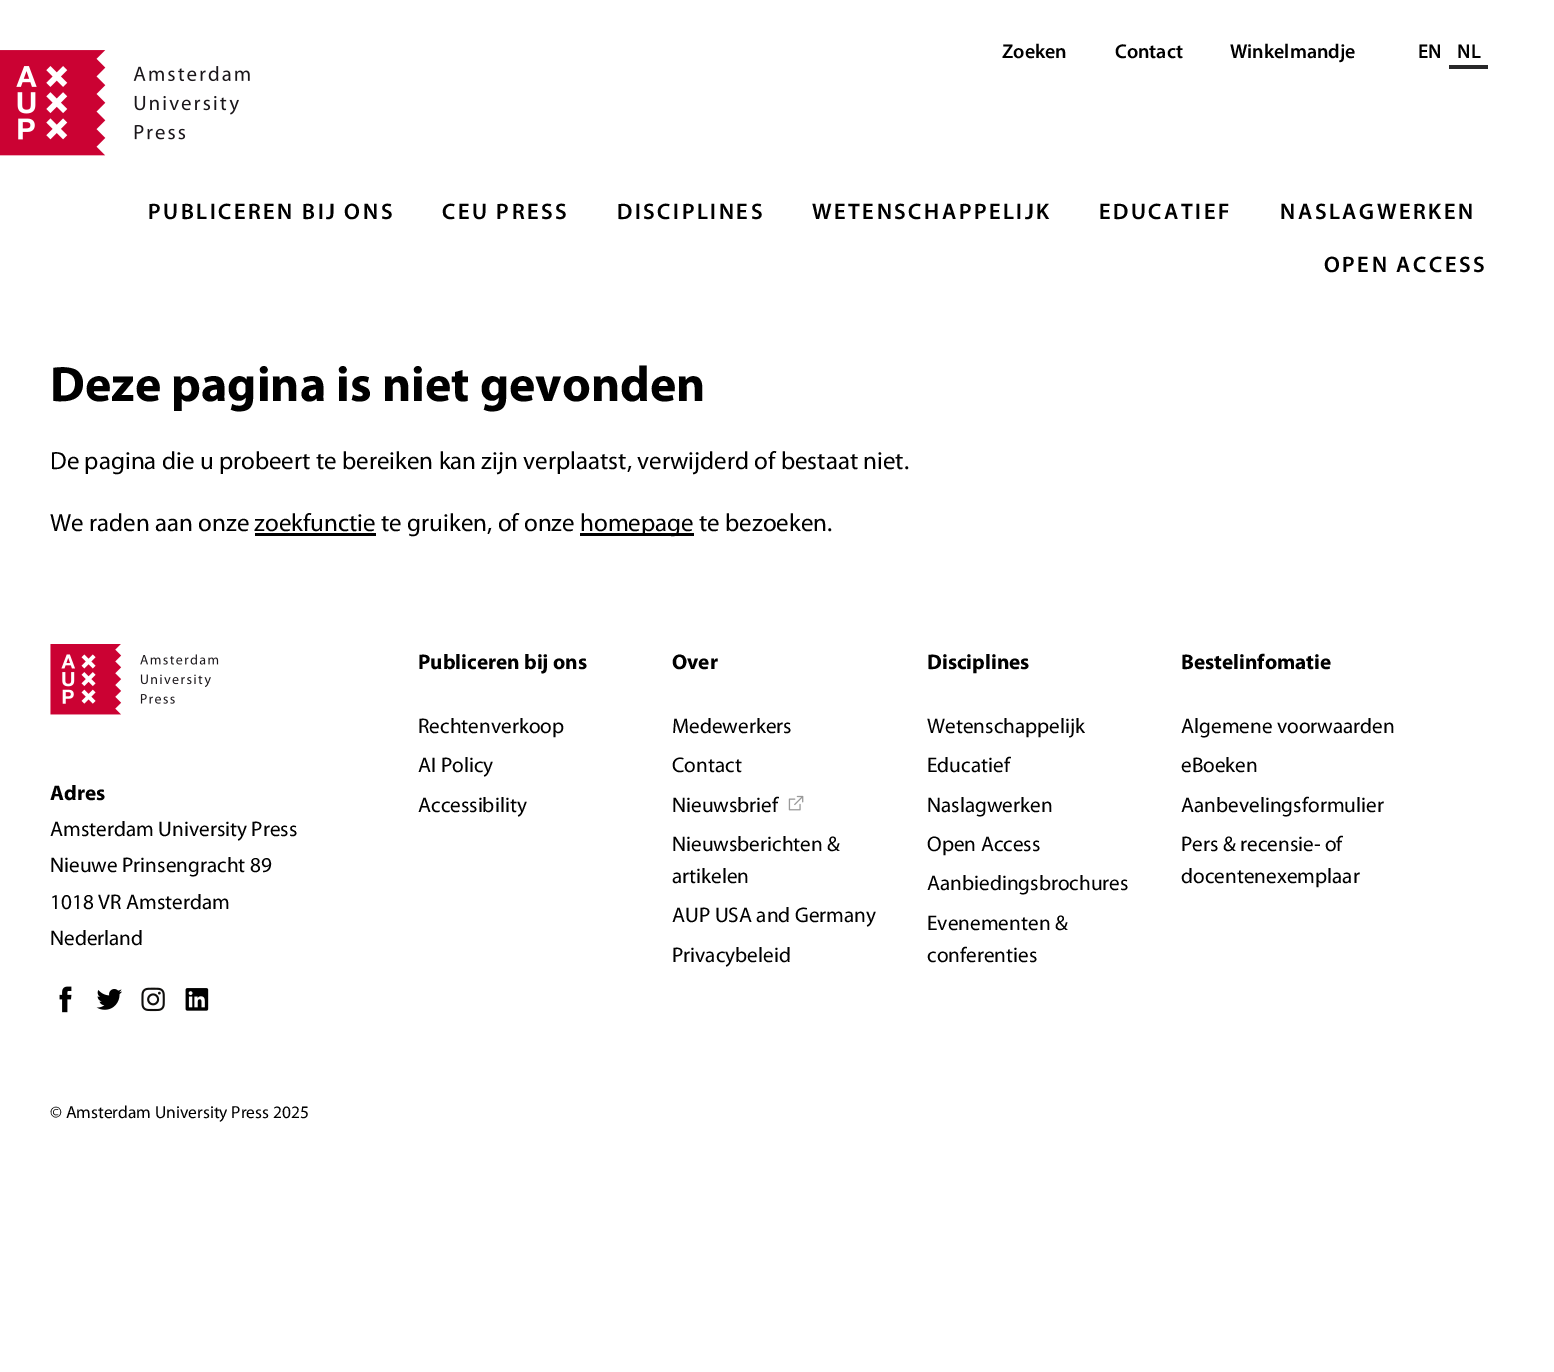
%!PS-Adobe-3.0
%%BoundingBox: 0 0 1554 1372
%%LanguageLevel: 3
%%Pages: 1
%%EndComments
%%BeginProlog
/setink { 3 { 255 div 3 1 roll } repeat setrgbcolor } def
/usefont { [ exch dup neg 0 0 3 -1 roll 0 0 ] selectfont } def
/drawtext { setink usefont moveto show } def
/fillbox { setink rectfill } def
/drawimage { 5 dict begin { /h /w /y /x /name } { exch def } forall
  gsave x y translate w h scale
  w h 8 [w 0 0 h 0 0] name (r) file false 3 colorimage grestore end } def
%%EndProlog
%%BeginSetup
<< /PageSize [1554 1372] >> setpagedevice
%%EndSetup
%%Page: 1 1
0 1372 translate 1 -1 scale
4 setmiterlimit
0 0 1554 1372 255 255 255 fillbox
(assets/img1.rgb) 0 50 250 106 drawimage
(Zoeken) 1002 58 /Myriad-SemiBold 20 0 0 0 drawtext
(Contact) 1115 58 /Myriad-SemiBold 20 0 0 0 drawtext
(Winkelmandje) 1230 58 /Myriad-SemiBold 20 0 0 0 drawtext
(EN) 1418 58 /Myriad-SemiBold 20 0 0 0 drawtext
(NL) 1457 58 /Myriad-SemiBold 20 0 0 0 drawtext
1449 65 39 4 40 40 41 fillbox
/Myriad-SemiBold 22.5 usefont
0 0 0 setink
148 219 moveto 2.5 0 (PUBLICEREN BIJ ONS) ashow
442 219 moveto 2.5 0 (CEU PRESS) ashow
617 219 moveto 2.5 0 (DISCIPLINES) ashow
812 219 moveto 2.5 0 (WETENSCHAPPELIJK) ashow
1099 219 moveto 2.5 0 (EDUCATIEF) ashow
1280 219 moveto 2.5 0 (NASLAGWERKEN) ashow
1324 272 moveto 2.5 0 (OPEN ACCESS) ashow
(Deze pagina is niet gevonden) 50 401 /Myriad-Bold 50 0 0 0 drawtext
(De pagina die u probeert te bereiken kan zijn verplaatst, verwijderd of bestaat niet.) 50 469 /Myriad-Regular 25 0 0 0 drawtext
(We raden aan onze zoekfunctie te gruiken, of onze) 50 531 /Myriad-Regular 25 0 0 0 drawtext
580 533 114 3 0 0 0 fillbox
(homepage te bezoeken.) 580 531 /Myriad-Regular 25 0 0 0 drawtext
255 533 121 3 0 0 0 fillbox
(assets/img2.rgb) 50 644 169 71 drawimage
(Adres) 50 800 /Myriad-Bold 21.25 0 0 0 drawtext
(Amsterdam University Press) 50 836 /Myriad-Regular 21.25 0 0 0 drawtext
(Nieuwe Prinsengracht 89) 50 872 /Myriad-Regular 21.25 0 0 0 drawtext
(1018 VR Amsterdam) 50 909 /Myriad-Regular 21.25 0 0 0 drawtext
(Nederland) 50 945 /Myriad-Regular 21.25 0 0 0 drawtext
(assets/img3.rgb) 59 986 13 27 drawimage
(assets/img4.rgb) 96 989 26 21 drawimage
(assets/img5.rgb) 141 987 24 25 drawimage
(assets/img6.rgb) 185 988 24 23 drawimage
(Publiceren bij ons) 418 669 /Myriad-Bold 21.25 0 0 0 drawtext
(Rechtenverkoop) 418 733 /Myriad-Regular 21.25 0 0 0 drawtext
(AI Policy) 418 772 /Myriad-Regular 21.25 0 0 0 drawtext
(Accessibility) 418 812 /Myriad-Regular 21.25 0 0 0 drawtext
(Over) 672 669 /Myriad-Bold 21.25 0 0 0 drawtext
(Medewerkers) 672 733 /Myriad-Regular 21.25 0 0 0 drawtext
(Contact) 672 772 /Myriad-Regular 21.25 0 0 0 drawtext
(Nieuwsbrief) 672 812 /Myriad-Regular 21.25 0 0 0 drawtext
(assets/img7.rgb) 788 795 16 16 drawimage
(Nieuwsberichten &) 672 851 /Myriad-Regular 21.25 0 0 0 drawtext
(artikelen) 672 883 /Myriad-Regular 21.25 0 0 0 drawtext
(AUP USA and Germany) 672 922 /Myriad-Regular 21.25 0 0 0 drawtext
(Privacybeleid) 672 962 /Myriad-Regular 21.25 0 0 0 drawtext
(Disciplines) 927 669 /Myriad-Bold 21.25 0 0 0 drawtext
(Wetenschappelijk) 927 733 /Myriad-Regular 21.25 0 0 0 drawtext
(Educatief) 927 772 /Myriad-Regular 21.25 0 0 0 drawtext
(Naslagwerken) 927 812 /Myriad-Regular 21.25 0 0 0 drawtext
(Open Access) 927 851 /Myriad-Regular 21.25 0 0 0 drawtext
(Aanbiedingsbrochures) 927 890 /Myriad-Regular 21.25 0 0 0 drawtext
(Evenementen &) 927 930 /Myriad-Regular 21.25 0 0 0 drawtext
(conferenties) 927 962 /Myriad-Regular 21.25 0 0 0 drawtext
(Bestelinfomatie) 1181 669 /Myriad-Bold 21.25 0 0 0 drawtext
(Algemene voorwaarden) 1181 733 /Myriad-Regular 21.25 0 0 0 drawtext
(eBoeken) 1181 772 /Myriad-Regular 21.25 0 0 0 drawtext
(Aanbevelingsformulier) 1181 812 /Myriad-Regular 21.25 0 0 0 drawtext
(Pers & recensie- of) 1181 851 /Myriad-Regular 21.25 0 0 0 drawtext
(docentenexemplaar) 1181 883 /Myriad-Regular 21.25 0 0 0 drawtext
(© Amsterdam University Press 2025) 50 1118 /Myriad-Regular 17.5 0 0 0 drawtext
showpage
%%EOF
